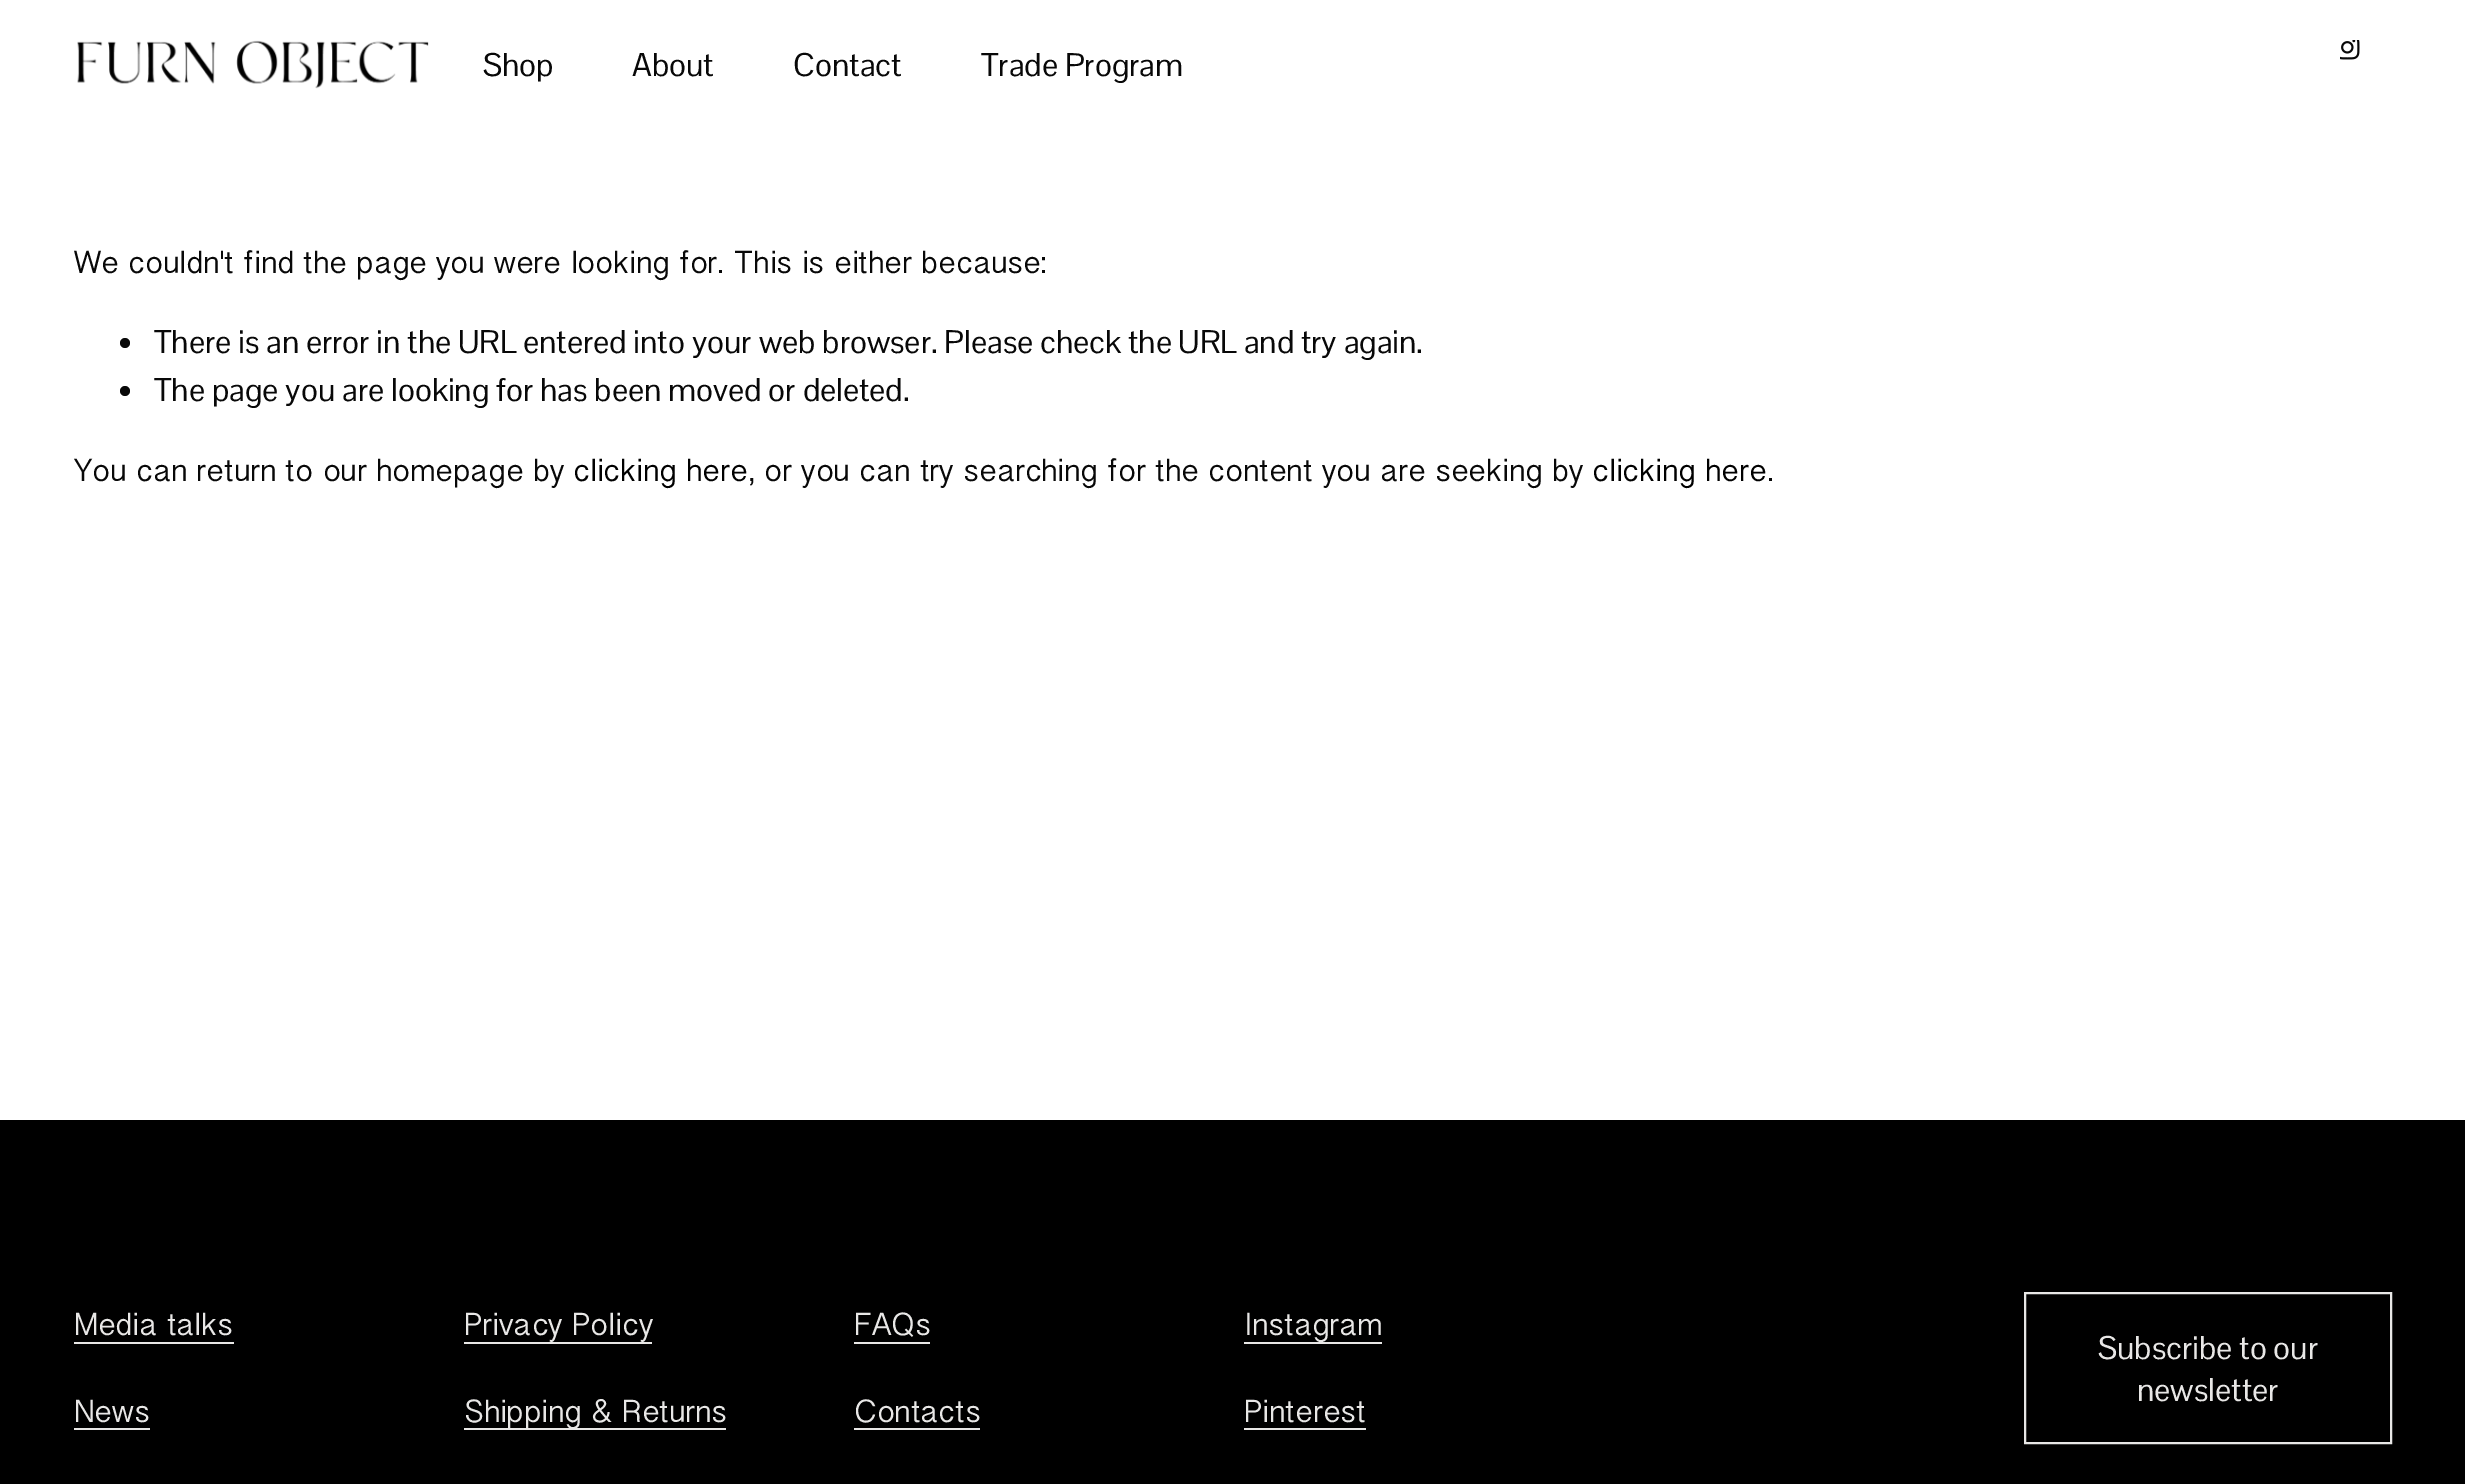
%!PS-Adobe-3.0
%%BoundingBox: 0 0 2465 1484
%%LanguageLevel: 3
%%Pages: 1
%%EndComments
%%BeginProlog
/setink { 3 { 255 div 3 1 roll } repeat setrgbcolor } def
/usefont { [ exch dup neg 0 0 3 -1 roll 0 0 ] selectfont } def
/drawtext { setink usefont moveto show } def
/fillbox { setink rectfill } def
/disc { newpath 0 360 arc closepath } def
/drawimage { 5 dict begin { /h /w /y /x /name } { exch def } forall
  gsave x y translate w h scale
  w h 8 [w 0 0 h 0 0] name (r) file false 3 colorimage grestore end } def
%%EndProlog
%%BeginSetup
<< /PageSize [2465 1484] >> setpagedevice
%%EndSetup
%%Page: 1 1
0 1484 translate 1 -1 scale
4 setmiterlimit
0 0 2465 1484 255 255 255 fillbox
(assets/img1.rgb) 2340 40 20 20 drawimage
(assets/img2.rgb) 77 40 352 49 drawimage
(Shop) 483 76 /PontanoSans-Regular 32 8 8 8 drawtext
(About) 632 76 /PontanoSans-Regular 32 8 8 8 drawtext
(Contact) 793 76 /PontanoSans-Regular 32 8 8 8 drawtext
(Trade Program) 981 76 /PontanoSans-Regular 32 8 8 8 drawtext
(We couldn't find the page you were looking for. This is either because:) 74 273 /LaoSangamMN-Regular 32 8 8 8 drawtext
125 343 5 disc fill
(There is an error in the URL entered into your web browser. Please check the URL and try again.) 154 353 /PontanoSans-Regular 32 8 8 8 drawtext
125 391 5 disc fill
(The page you are looking for has been moved or deleted.) 154 401 /PontanoSans-Regular 32 8 8 8 drawtext
(You can return to our homepage by) 74 481 /LaoSangamMN-Regular 32 8 8 8 drawtext
(clicking here) 573 481 /LaoSangamMN-Regular 32 0 0 0 drawtext
(, or you can try searching for the content you are seeking by) 748 481 /LaoSangamMN-Regular 32 8 8 8 drawtext
(clicking here) 1592 481 /LaoSangamMN-Regular 32 0 0 0 drawtext
(.) 1767 481 /LaoSangamMN-Regular 32 8 8 8 drawtext
0 1120 2465 364 0 0 0 fillbox
(Media talks) 74 1335 /LaoSangamMN-Regular 32 232 231 230 drawtext
74 1342 160 2 232 231 230 fillbox
(Privacy Policy) 464 1335 /LaoSangamMN-Regular 32 232 231 230 drawtext
464 1342 188 2 232 231 230 fillbox
(FAQs) 854 1335 /LaoSangamMN-Regular 32 232 231 230 drawtext
854 1342 76 2 232 231 230 fillbox
1244 1342 138 2 232 231 230 fillbox
(Instagram) 1244 1335 /LaoSangamMN-Regular 32 232 231 230 drawtext
2 setlinewidth
2025 1293 366 150 rectstroke
(Subscribe to our) 2098 1359 /PontanoSans-Regular 32 232 231 230 drawtext
(newsletter) 2137 1401 /PontanoSans-Regular 32 232 231 230 drawtext
(News) 74 1422 /LaoSangamMN-Regular 32 232 231 230 drawtext
74 1428 76 2 232 231 230 fillbox
464 1428 262 2 232 231 230 fillbox
(Shipping & Returns) 464 1422 /LaoSangamMN-Regular 32 232 231 230 drawtext
(Contacts) 854 1422 /LaoSangamMN-Regular 32 232 231 230 drawtext
854 1428 126 2 232 231 230 fillbox
(Pinterest) 1244 1422 /LaoSangamMN-Regular 32 232 231 230 drawtext
1244 1428 122 2 232 231 230 fillbox
showpage
%%EOF
